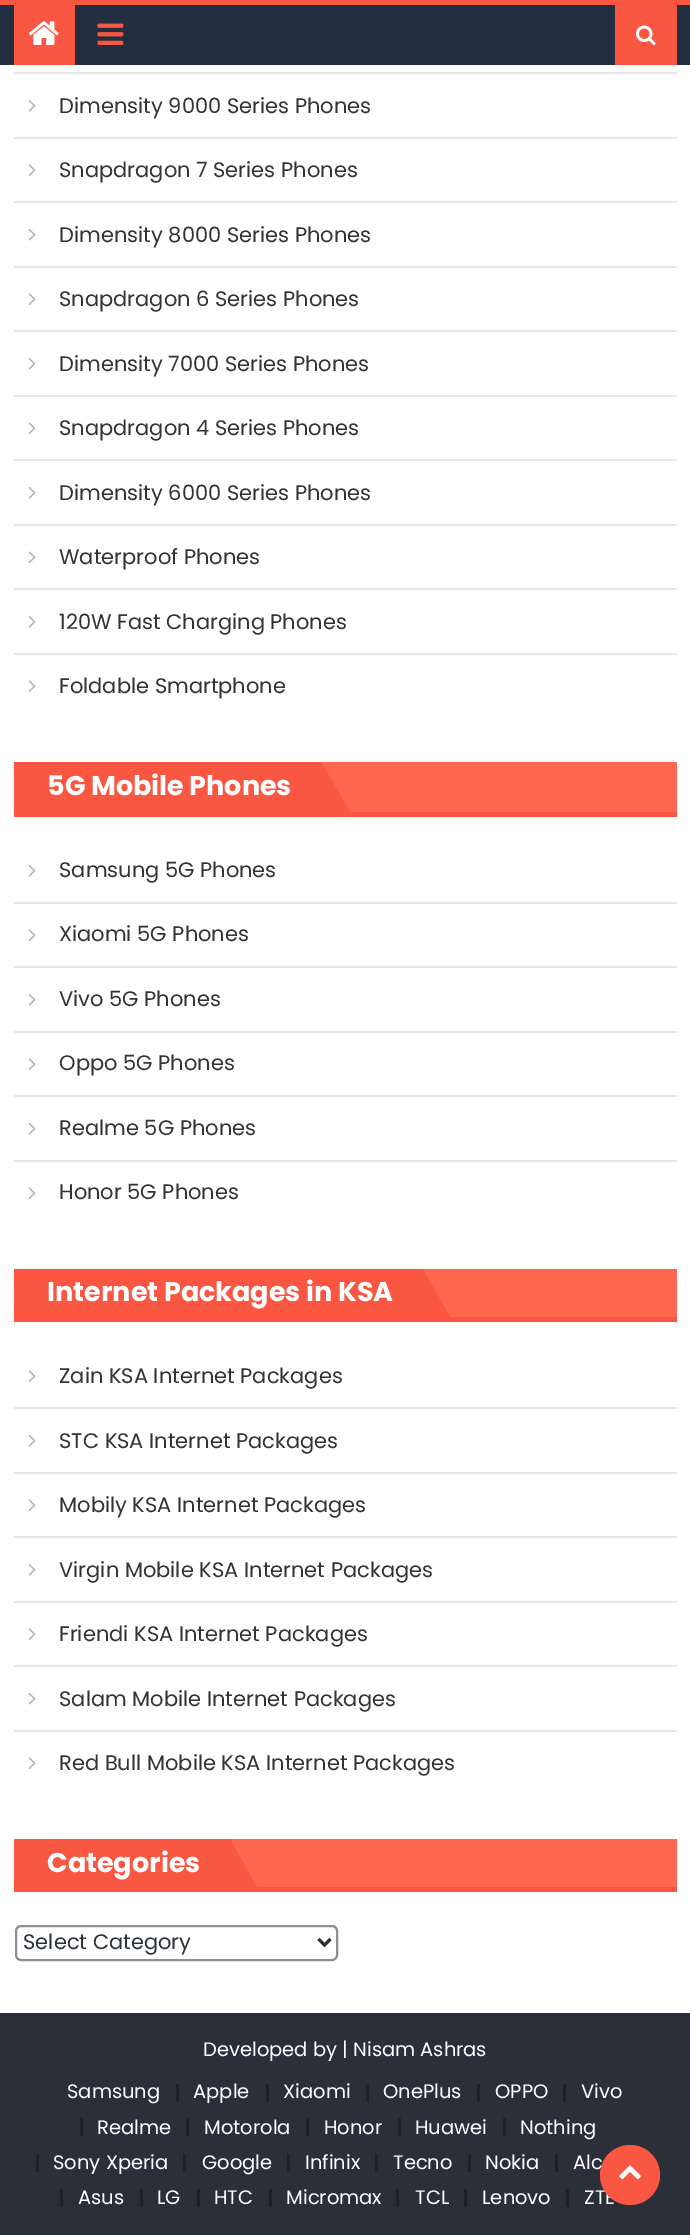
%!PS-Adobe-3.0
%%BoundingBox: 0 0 690 2235
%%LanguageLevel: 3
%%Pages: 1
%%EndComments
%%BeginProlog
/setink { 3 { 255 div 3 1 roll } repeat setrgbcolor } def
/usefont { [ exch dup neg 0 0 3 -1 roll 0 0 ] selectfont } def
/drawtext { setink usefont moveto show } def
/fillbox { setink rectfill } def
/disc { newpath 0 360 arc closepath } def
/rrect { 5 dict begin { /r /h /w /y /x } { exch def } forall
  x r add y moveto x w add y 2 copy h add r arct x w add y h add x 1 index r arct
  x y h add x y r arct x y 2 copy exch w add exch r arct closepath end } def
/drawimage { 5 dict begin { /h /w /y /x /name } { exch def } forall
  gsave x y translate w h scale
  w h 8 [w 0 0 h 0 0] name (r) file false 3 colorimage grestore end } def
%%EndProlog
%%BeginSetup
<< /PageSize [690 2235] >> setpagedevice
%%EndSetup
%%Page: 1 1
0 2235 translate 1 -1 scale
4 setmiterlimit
0 0 690 2235 255 255 255 fillbox
0 5 690 60 35 47 64 fillbox
0 0 690 5 250 87 66 fillbox
14 5 61 60 250 87 66 fillbox
(assets/img1.rgb) 29 21 30 24 drawimage
(assets/img2.rgb) 97 23 27 22 drawimage
615 5 62 60 250 87 66 fillbox
(assets/img3.rgb) 636 25 20 20 drawimage
14 72 663 2 230 230 230 fillbox
14 137 663 2 230 230 230 fillbox
(assets/img4.rgb) 28 100 8 12 drawimage
(Dimensity 9000 Series Phones) 59 113 /Poppins-Regular 21 51 51 51 drawtext
14 201 663 2 230 230 230 fillbox
(assets/img5.rgb) 28 164 8 12 drawimage
(Snapdragon 7 Series Phones) 59 177 /Poppins-Regular 21 51 51 51 drawtext
14 266 663 2 230 230 230 fillbox
(assets/img4.rgb) 28 229 8 12 drawimage
(Dimensity 8000 Series Phones) 59 242 /Poppins-Regular 21 51 51 51 drawtext
14 330 663 2 230 230 230 fillbox
(assets/img5.rgb) 28 293 8 12 drawimage
(Snapdragon 6 Series Phones) 59 306 /Poppins-Regular 21 51 51 51 drawtext
14 395 663 2 230 230 230 fillbox
(assets/img4.rgb) 28 358 8 12 drawimage
(Dimensity 7000 Series Phones) 59 371 /Poppins-Regular 21 51 51 51 drawtext
14 459 663 2 230 230 230 fillbox
(assets/img5.rgb) 28 422 8 12 drawimage
(Snapdragon 4 Series Phones) 59 435 /Poppins-Regular 21 51 51 51 drawtext
14 524 663 2 230 230 230 fillbox
(assets/img4.rgb) 28 487 8 12 drawimage
(Dimensity 6000 Series Phones) 59 500 /Poppins-Regular 21 51 51 51 drawtext
14 588 663 2 230 230 230 fillbox
(assets/img5.rgb) 28 551 8 12 drawimage
(Waterproof Phones) 59 564 /Poppins-Regular 21 51 51 51 drawtext
14 653 663 2 230 230 230 fillbox
(assets/img4.rgb) 28 616 8 12 drawimage
(120W Fast Charging Phones) 59 629 /Poppins-Regular 21 51 51 51 drawtext
(assets/img5.rgb) 28 680 8 12 drawimage
(Foldable Smartphone) 59 693 /Poppins-Regular 21 51 51 51 drawtext
321 762 356 50 255 104 79 fillbox
14 812 663 5 250 87 66 fillbox
14 762 3 54 250 87 66 fillbox
17 762 304 50 250 87 66 fillbox
(5G Mobile Phones) 47 795 /Poppins-Bold 27 255 255 255 drawtext
250 87 66 setink
351 814 moveto 321 814 lineto 321 762 lineto closepath fill
14 902 663 2 230 230 230 fillbox
(assets/img4.rgb) 28 865 8 12 drawimage
(Samsung 5G Phones) 59 877 /Poppins-Regular 21 51 51 51 drawtext
14 966 663 2 230 230 230 fillbox
(assets/img5.rgb) 28 929 8 12 drawimage
(Xiaomi 5G Phones) 59 941 /Poppins-Regular 21 51 51 51 drawtext
14 1031 663 2 230 230 230 fillbox
(assets/img4.rgb) 28 994 8 12 drawimage
(Vivo 5G Phones) 59 1006 /Poppins-Regular 21 51 51 51 drawtext
14 1095 663 2 230 230 230 fillbox
(assets/img5.rgb) 28 1058 8 12 drawimage
(Oppo 5G Phones) 59 1070 /Poppins-Regular 21 51 51 51 drawtext
14 1160 663 2 230 230 230 fillbox
(assets/img4.rgb) 28 1123 8 12 drawimage
(Realme 5G Phones) 59 1135 /Poppins-Regular 21 51 51 51 drawtext
(assets/img5.rgb) 28 1187 8 12 drawimage
(Honor 5G Phones) 59 1199 /Poppins-Regular 21 51 51 51 drawtext
423 1269 254 48 255 104 79 fillbox
14 1317 663 5 250 87 66 fillbox
14 1269 3 53 250 87 66 fillbox
17 1269 406 48 250 87 66 fillbox
(Internet Packages in KSA) 47 1301 /Poppins-Bold 27 255 255 255 drawtext
250 87 66 setink
453 1322 moveto 423 1322 lineto 423 1269 lineto closepath fill
14 1407 663 2 230 230 230 fillbox
(assets/img5.rgb) 28 1370 8 12 drawimage
(Zain KSA Internet Packages) 59 1383 /Poppins-Regular 21 51 51 51 drawtext
14 1472 663 2 230 230 230 fillbox
(assets/img4.rgb) 28 1435 8 12 drawimage
(STC KSA Internet Packages) 59 1448 /Poppins-Regular 21 51 51 51 drawtext
14 1536 663 2 230 230 230 fillbox
(assets/img5.rgb) 28 1499 8 12 drawimage
(Mobily KSA Internet Packages) 59 1512 /Poppins-Regular 21 51 51 51 drawtext
14 1601 663 2 230 230 230 fillbox
(assets/img4.rgb) 28 1564 8 12 drawimage
(Virgin Mobile KSA Internet Packages) 59 1577 /Poppins-Regular 21 51 51 51 drawtext
14 1665 663 2 230 230 230 fillbox
(assets/img5.rgb) 28 1628 8 12 drawimage
(Friendi KSA Internet Packages) 59 1641 /Poppins-Regular 21 51 51 51 drawtext
14 1730 663 2 230 230 230 fillbox
(assets/img4.rgb) 28 1693 8 12 drawimage
(Salam Mobile Internet Packages) 59 1706 /Poppins-Regular 21 51 51 51 drawtext
(assets/img5.rgb) 28 1757 8 12 drawimage
(Red Bull Mobile KSA Internet Packages) 59 1770 /Poppins-Regular 21 51 51 51 drawtext
230 1839 447 48 255 104 79 fillbox
14 1887 663 5 250 87 66 fillbox
14 1839 3 53 250 87 66 fillbox
17 1839 213 48 250 87 66 fillbox
(Categories) 47 1872 /Poppins-Bold 27 255 255 255 drawtext
250 87 66 setink
260 1892 moveto 230 1892 lineto 230 1839 lineto closepath fill
140 143 148 setink
2 setlinewidth
16 1926 321 34 5 rrect stroke
44 51 56 setink
3 setlinewidth
318.5 1939 moveto 324.5 1945 lineto 330.5 1939 lineto stroke
(Select Category) 23 1949 /Poppins-Regular 21 44 51 56 drawtext
0 2013 690 222 43 47 58 fillbox
(Developed by | Nisam Ashras) 203 2056 /Poppins-Regular 19.5 255 255 255 drawtext
(Samsung) 67 2098 /Poppins-Regular 19.5 255 255 255 drawtext
176 2084 3 18 30 33 41 fillbox
(Apple) 193 2098 /Poppins-Regular 19.5 255 255 255 drawtext
266 2084 3 18 30 33 41 fillbox
(Xiaomi) 283 2098 /Poppins-Regular 19.5 255 255 255 drawtext
366 2084 3 18 30 33 41 fillbox
(OnePlus) 383 2098 /Poppins-Regular 19.5 255 255 255 drawtext
477 2084 3 18 30 33 41 fillbox
(OPPO) 495 2098 /Poppins-Regular 19.5 255 255 255 drawtext
563 2084 3 18 30 33 41 fillbox
(Vivo) 581 2098 /Poppins-Regular 19.5 255 255 255 drawtext
80 2118 3 18 30 33 41 fillbox
(Realme) 97 2134 /Poppins-Regular 19.5 255 255 255 drawtext
186 2118 3 18 30 33 41 fillbox
(Motorola) 204 2134 /Poppins-Regular 19.5 255 255 255 drawtext
306 2118 3 18 30 33 41 fillbox
(Honor) 324 2134 /Poppins-Regular 19.5 255 255 255 drawtext
398 2118 3 18 30 33 41 fillbox
(Huawei) 415 2134 /Poppins-Regular 19.5 255 255 255 drawtext
503 2118 3 18 30 33 41 fillbox
(Nothing) 520 2134 /Poppins-Regular 19.5 255 255 255 drawtext
36 2154 3 18 30 33 41 fillbox
(Sony Xperia) 53 2169 /Poppins-Regular 19.5 255 255 255 drawtext
183 2154 3 18 30 33 41 fillbox
(Google) 202 2169 /Poppins-Regular 19.5 255 255 255 drawtext
287 2154 3 18 30 33 41 fillbox
(Infinix) 305 2169 /Poppins-Regular 19.5 255 255 255 drawtext
375 2154 3 18 30 33 41 fillbox
(Tecno) 393 2169 /Poppins-Regular 19.5 255 255 255 drawtext
468 2154 3 18 30 33 41 fillbox
(Nokia) 485 2169 /Poppins-Regular 19.5 255 255 255 drawtext
555 2154 3 18 30 33 41 fillbox
(Alc) 573 2169 /Poppins-Regular 19.5 255 255 255 drawtext
60 2189 3 18 30 33 41 fillbox
(Asus) 78 2204 /Poppins-Regular 19.5 255 255 255 drawtext
140 2189 3 18 30 33 41 fillbox
(LG) 157 2204 /Poppins-Regular 19.5 255 255 255 drawtext
197 2189 3 18 30 33 41 fillbox
(HTC) 214 2204 /Poppins-Regular 19.5 255 255 255 drawtext
269 2189 3 18 30 33 41 fillbox
(Micromax) 286 2204 /Poppins-Regular 19.5 255 255 255 drawtext
396 2189 3 18 30 33 41 fillbox
(TCL) 415 2204 /Poppins-Regular 19.5 255 255 255 drawtext
464 2189 3 18 30 33 41 fillbox
(Lenovo) 482 2204 /Poppins-Regular 19.5 255 255 255 drawtext
566 2189 3 18 30 33 41 fillbox
(ZTE) 584 2204 /Poppins-Regular 19.5 255 255 255 drawtext
250 87 66 setink
630 2175 30 disc fill
(assets/img6.rgb) 619 2165 22 15 drawimage
showpage
%%EOF
